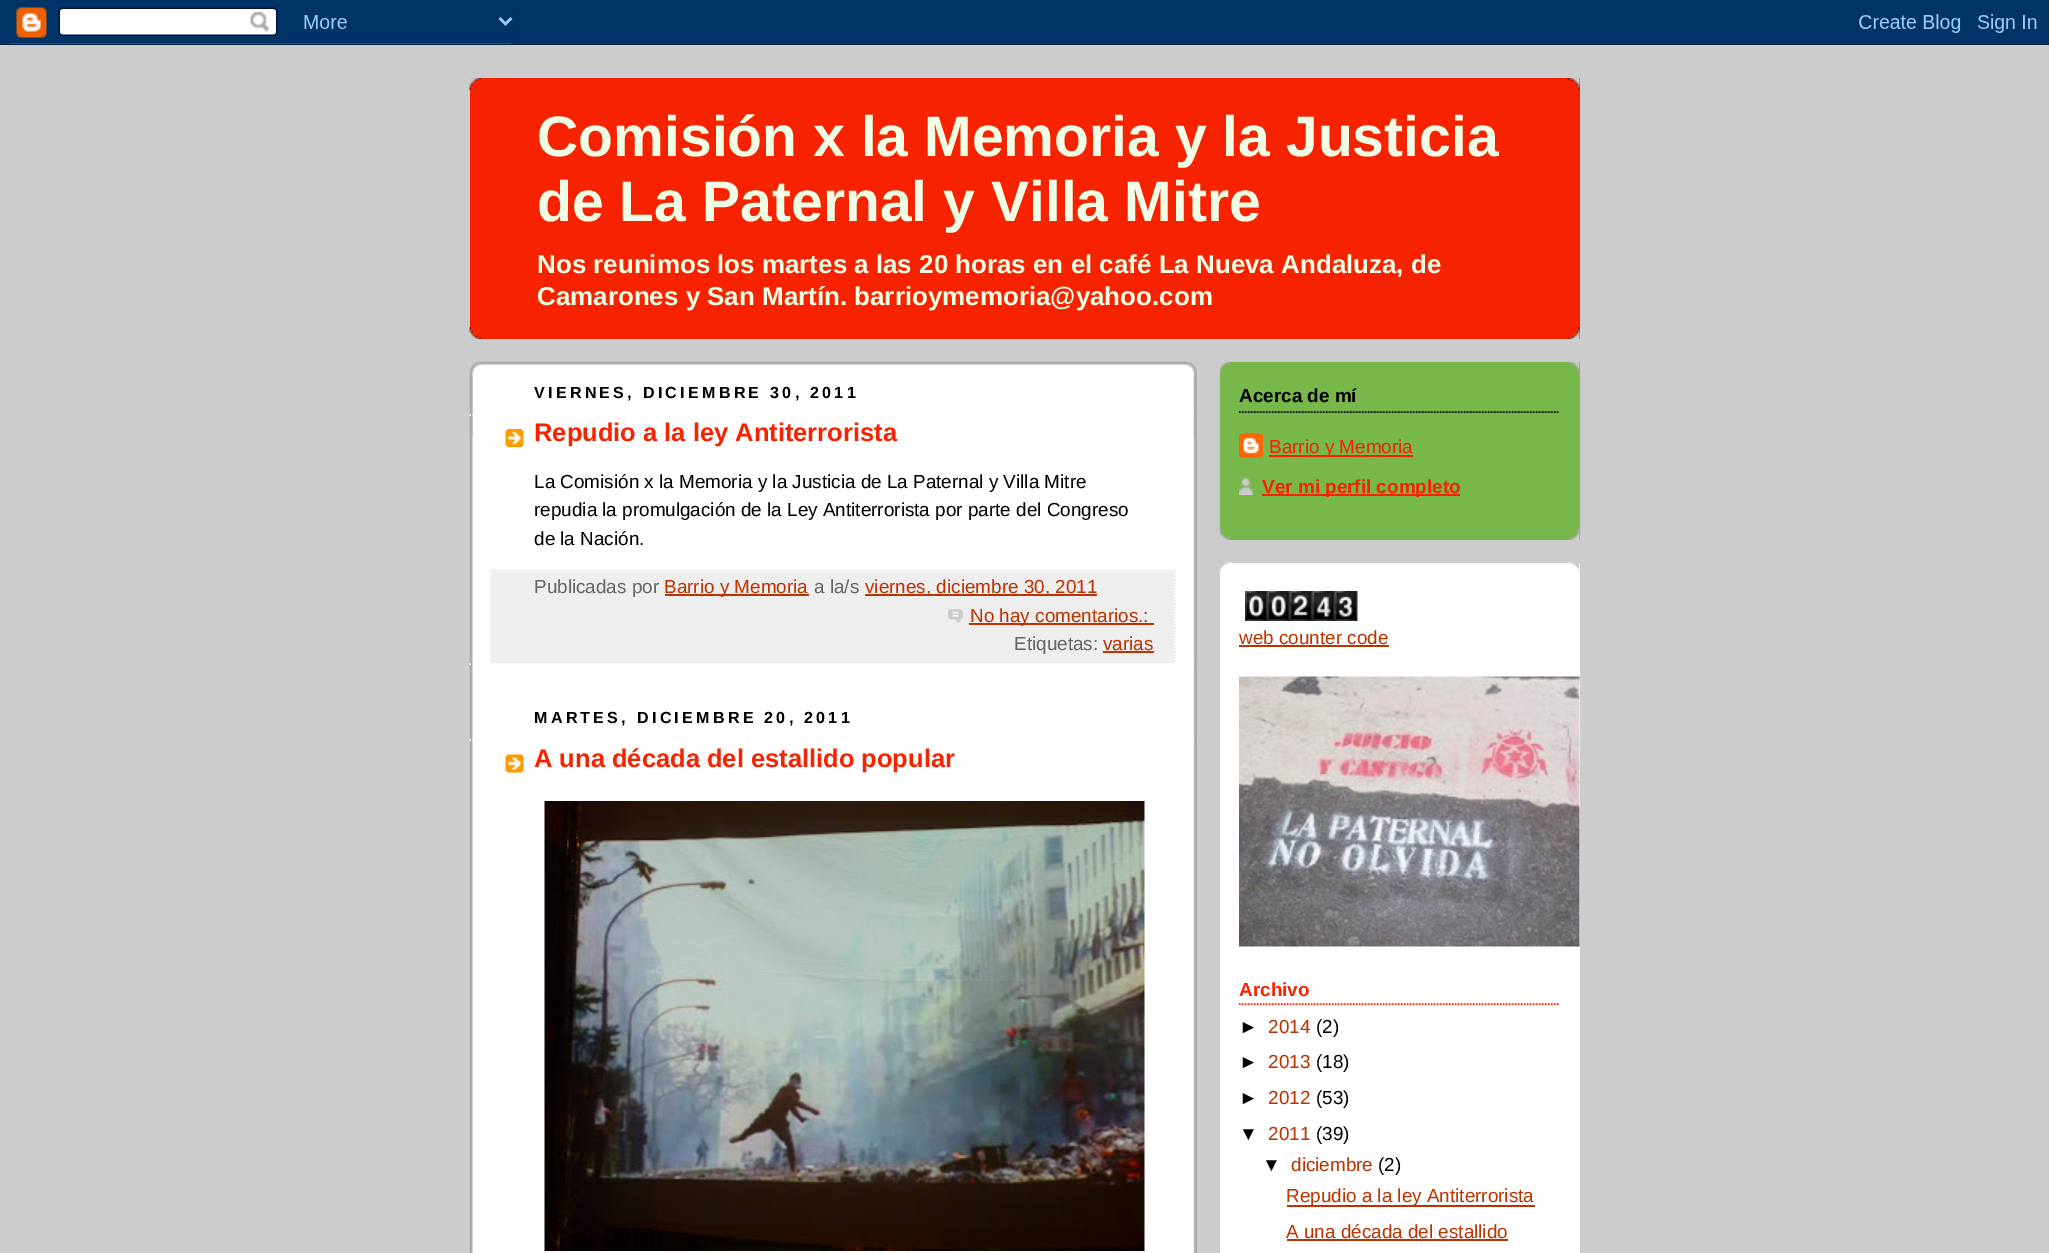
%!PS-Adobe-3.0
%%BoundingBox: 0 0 2049 1253
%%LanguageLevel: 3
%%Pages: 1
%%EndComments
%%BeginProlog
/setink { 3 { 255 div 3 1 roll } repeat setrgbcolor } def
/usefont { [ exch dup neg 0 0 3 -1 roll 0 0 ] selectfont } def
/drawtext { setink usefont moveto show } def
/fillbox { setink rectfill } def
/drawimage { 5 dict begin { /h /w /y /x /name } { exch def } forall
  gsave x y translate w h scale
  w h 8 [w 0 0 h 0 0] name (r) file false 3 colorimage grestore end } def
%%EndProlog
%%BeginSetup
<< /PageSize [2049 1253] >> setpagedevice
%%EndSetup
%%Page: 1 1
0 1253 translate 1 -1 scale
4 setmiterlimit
0 0 2049 1253 204 204 204 fillbox
(assets/img1.rgb) 0 0 2049 45 drawimage
470 78 1110 261 247 35 0 fillbox
(assets/img2.rgb) 469 78 1111 12 drawimage
(assets/img3.rgb) 469 327 1111 12 drawimage
(Comisión x la Memoria y la Justicia) 537 156 /LiberationSans-Bold 57.1 241 255 230 drawtext
(de La Paternal y Villa Mitre) 537 221 /LiberationSans-Bold 57.1 241 255 230 drawtext
(Nos reunimos los martes a las 20 horas en el café La Nueva Andaluza, de) 537 273 /LiberationSans-Bold 25.95 241 255 230 drawtext
(Camarones y San Martín. barrioymemoria@yahoo.com) 537 305 /LiberationSans-Bold 25.95 241 255 230 drawtext
472 364 723 889 255 255 255 fillbox
(assets/img4.rgb) 469 361 728 76 drawimage
(assets/img5.rgb) 469 376 728 877 drawimage
/LiberationSans-Bold 16.1 usefont
0 0 0 setink
534 398 moveto 3.25 0 (VIERNES, DICIEMBRE 30, 2011) ashow
255 255 255 setink
1.5 setlinewidth
[1.5 1.5] 0 setdash
469.5 415 moveto 1195.5 415 lineto stroke
469.5 664 moveto 1195.5 664 lineto stroke
(assets/img6.rgb) 505 429 19 18 drawimage
(Repudio a la ley Antiterrorista) 534 441 /LiberationSans-Bold 25.5 247 35 0 drawtext
(La Comisión x la Memoria y la Justicia de La Paternal y Villa Mitre) 534 488 /LiberationSans-Regular 18.9 0 0 0 drawtext
(repudia la promulgación de la Ley Antiterrorista por parte del Congreso) 534 516 /LiberationSans-Regular 18.9 0 0 0 drawtext
(de la Nación.) 534 545 /LiberationSans-Regular 18.9 0 0 0 drawtext
489 569 687 94 238 238 238 fillbox
255 255 255 setink
489 569 moveto 1176 569 lineto stroke
1175 568.5 moveto 1175 663 lineto stroke
490 568.5 moveto 490 663 lineto stroke
(Publicadas por) 534 593 /LiberationSans-Regular 18.9 102 102 102 drawtext
665 594 144 2 187 51 0 fillbox
(Barrio y Memoria) 664 593 /LiberationSans-Regular 18.9 187 51 0 drawtext
(a la/s) 814 593 /LiberationSans-Regular 18.9 102 102 102 drawtext
187 51 0 setink
865 595 moveto 1097 595 lineto stroke
866 594 231 2 187 51 0 fillbox
(viernes, diciembre 30, 2011) 865 593 /LiberationSans-Regular 18.9 187 51 0 drawtext
(assets/img7.rgb) 948 609 15 14 drawimage
969 623 185 2 187 51 0 fillbox
(No hay comentarios.:) 970 622 /LiberationSans-Regular 18.9 187 51 0 drawtext
(Etiquetas:) 1014 650 /LiberationSans-Regular 18.9 102 102 102 drawtext
(varias) 1103 650 /LiberationSans-Regular 18.9 187 51 0 drawtext
1103 651 51 2 187 51 0 fillbox
/LiberationSans-Bold 16.1 usefont
0 0 0 setink
534 723 moveto 3.25 0 (MARTES, DICIEMBRE 20, 2011) ashow
255 255 255 setink
469.5 740 moveto 1195.5 740 lineto stroke
(assets/img8.rgb) 505 754 19 19 drawimage
(A una década del estallido popular) 534 767 /LiberationSans-Bold 25.5 247 35 0 drawtext
(assets/img9.rgb) 544 801 601 450 drawimage
1220 362 360 178 120 183 73 fillbox
(assets/img10.rgb) 1219 528 361 12 drawimage
(assets/img11.rgb) 1219 361 361 13 drawimage
0 0 0 setink
1239 412 moveto 1560 412 lineto stroke
(Acerca de mí) 1239 402 /LiberationSans-Bold 18.9 0 0 0 drawtext
(assets/img12.rgb) 1239 433 24 25 drawimage
1269 455 144 2 247 35 0 fillbox
(Barrio y Memoria) 1269 453 /LiberationSans-Regular 18.9 247 35 0 drawtext
(assets/img13.rgb) 1239 478 14 17 drawimage
1262 494 198 2 247 35 0 fillbox
(Ver mi perfil completo) 1262 493 /LiberationSans-Bold 18.9 247 35 0 drawtext
1220 563 360 690 255 255 255 fillbox
(assets/img14.rgb) 1219 562 361 13 drawimage
(assets/img15.rgb) 1245 591 113 30 drawimage
(web counter code) 1239 644 /LiberationSans-Regular 18.9 187 51 0 drawtext
1239 645 150 2 187 51 0 fillbox
(assets/img16.rgb) 1239 676 341 271 drawimage
247 35 0 setink
1239 1004 moveto 1560 1004 lineto stroke
(Archivo) 1239 996 /LiberationSans-Bold 18.9 247 35 0 drawtext
(►) 1239 1033 /LiberationSans-Regular 18.9 0 0 0 drawtext
(2014) 1268 1033 /LiberationSans-Regular 18.9 187 51 0 drawtext
(\(2\)) 1316 1033 /LiberationSans-Regular 18.9 0 0 0 drawtext
(►) 1239 1068 /LiberationSans-Regular 18.9 0 0 0 drawtext
(2013) 1268 1068 /LiberationSans-Regular 18.9 187 51 0 drawtext
(\(18\)) 1316 1068 /LiberationSans-Regular 18.9 0 0 0 drawtext
(►) 1239 1104 /LiberationSans-Regular 18.9 0 0 0 drawtext
(2012) 1268 1104 /LiberationSans-Regular 18.9 187 51 0 drawtext
(\(53\)) 1316 1104 /LiberationSans-Regular 18.9 0 0 0 drawtext
(▼) 1239 1140 /LiberationSans-Regular 18.9 0 0 0 drawtext
(2011) 1268 1140 /LiberationSans-Regular 18.9 187 51 0 drawtext
(\(39\)) 1316 1140 /LiberationSans-Regular 18.9 0 0 0 drawtext
(▼) 1262 1171 /LiberationSans-Regular 18.9 0 0 0 drawtext
(diciembre) 1291 1171 /LiberationSans-Regular 18.9 187 51 0 drawtext
(\(2\)) 1378 1171 /LiberationSans-Regular 18.9 0 0 0 drawtext
1287 1205 248 2 187 51 0 fillbox
(Repudio a la ley Antiterrorista) 1286 1202 /LiberationSans-Regular 18.9 187 51 0 drawtext
(A una década del estallido) 1286 1238 /LiberationSans-Regular 18.9 187 51 0 drawtext
1287 1239 221 2 187 51 0 fillbox
showpage
%%EOF
